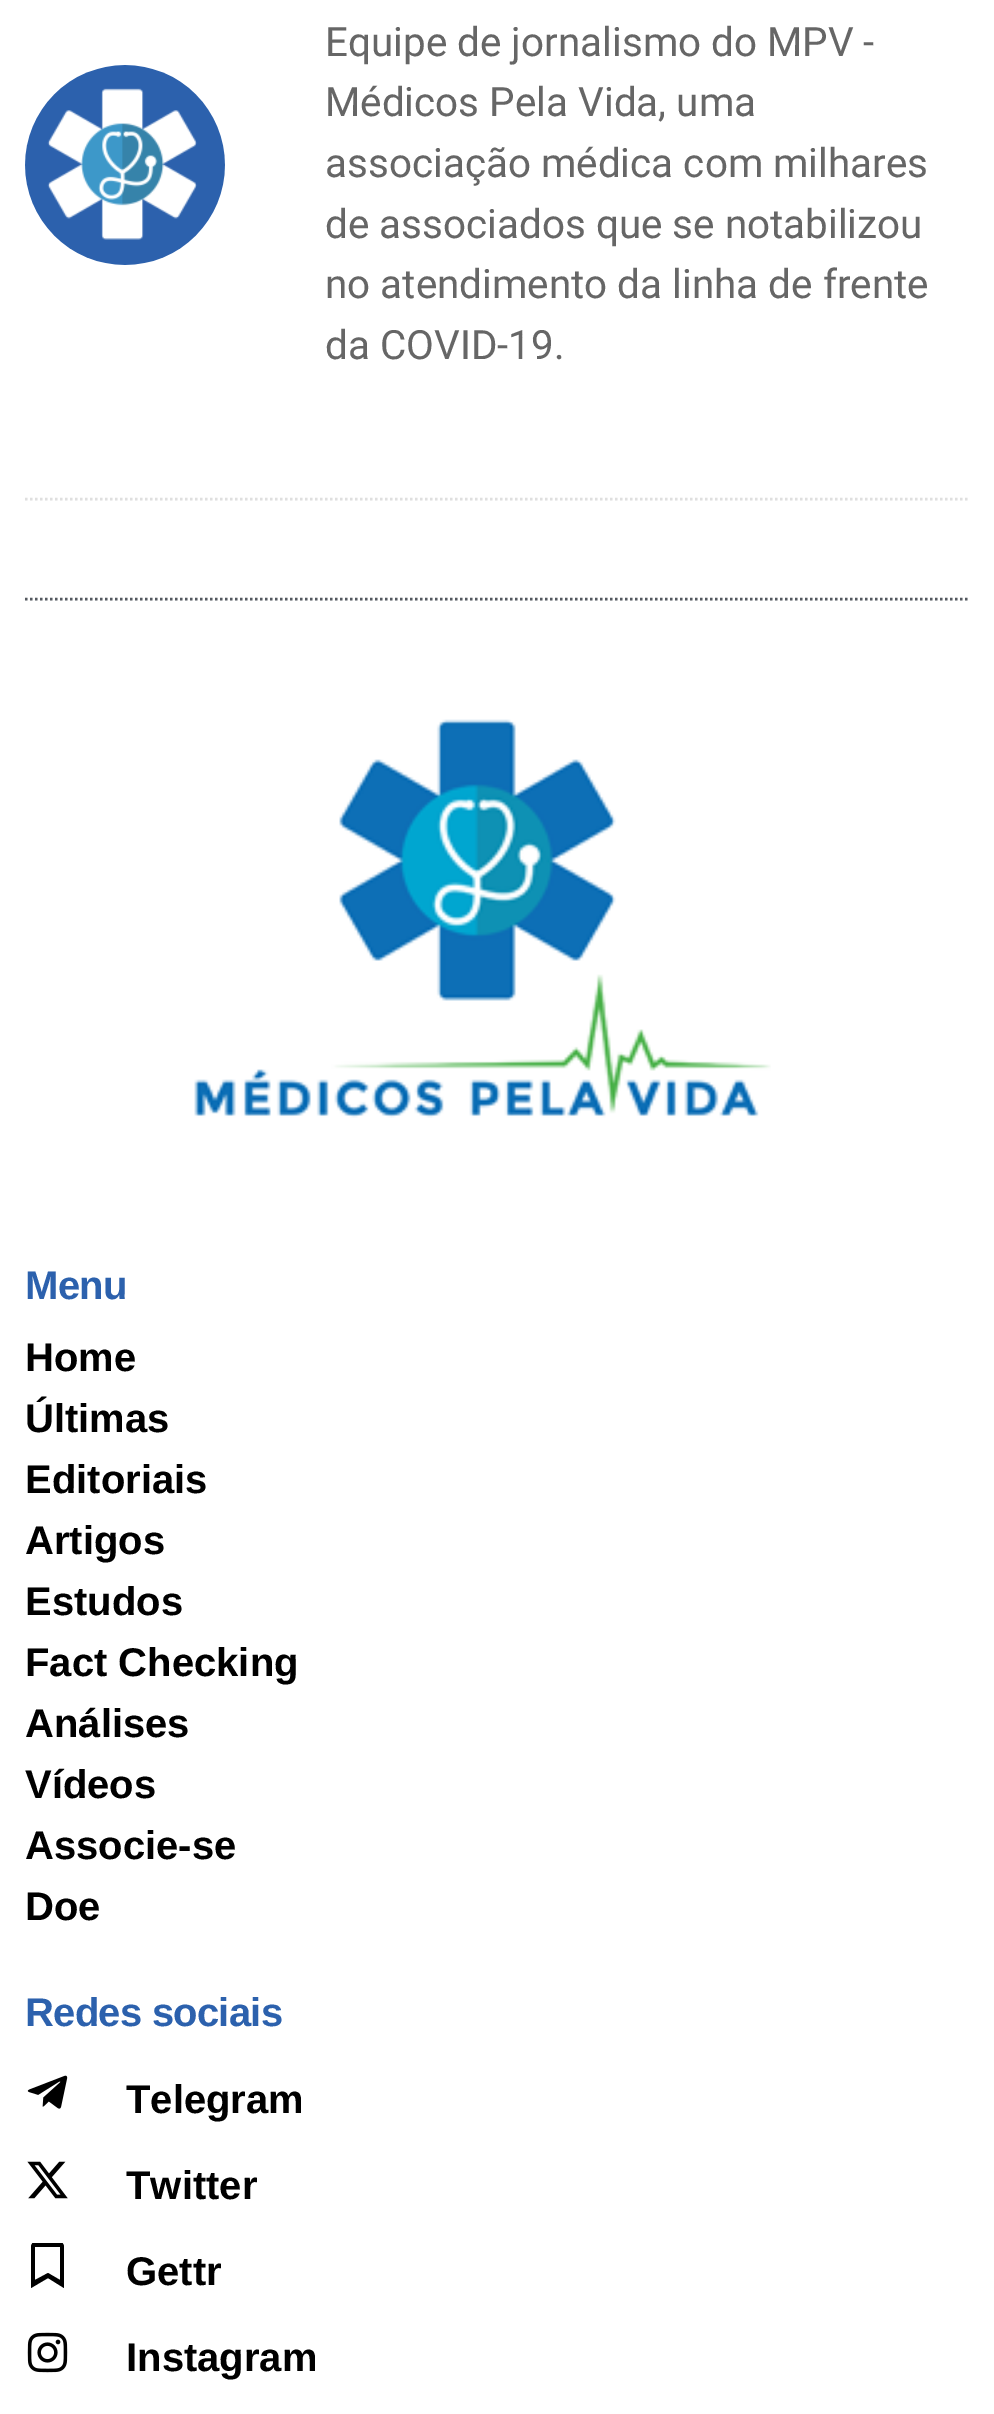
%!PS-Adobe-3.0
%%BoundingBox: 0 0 994 2414
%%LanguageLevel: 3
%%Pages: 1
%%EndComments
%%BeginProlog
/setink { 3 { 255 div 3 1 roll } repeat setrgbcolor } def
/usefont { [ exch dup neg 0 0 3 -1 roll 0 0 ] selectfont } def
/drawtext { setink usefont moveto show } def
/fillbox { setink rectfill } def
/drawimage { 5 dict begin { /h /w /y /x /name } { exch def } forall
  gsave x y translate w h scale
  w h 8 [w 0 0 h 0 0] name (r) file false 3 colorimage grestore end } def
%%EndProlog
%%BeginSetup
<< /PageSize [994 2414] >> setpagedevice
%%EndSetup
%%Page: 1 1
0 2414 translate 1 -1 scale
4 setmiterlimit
0 0 994 2414 255 255 255 fillbox
(assets/img1.rgb) 25 65 200 200 drawimage
(Equipe de jornalismo do MPV -) 325 56 /Roboto-Regular 40.4 102 102 102 drawtext
(Médicos Pela Vida, uma) 325 116 /Roboto-Regular 40.4 102 102 102 drawtext
(associação médica com milhares) 325 177 /Roboto-Regular 40.4 102 102 102 drawtext
(de associados que se notabilizou) 325 238 /Roboto-Regular 40.4 102 102 102 drawtext
(no atendimento da linha de frente) 325 298 /Roboto-Regular 40.4 102 102 102 drawtext
(da COVID-19.) 325 359 /Roboto-Regular 40.4 102 102 102 drawtext
223 223 223 setink
2.5 setlinewidth
[2.5 2.5] 0 setdash
25 499 moveto 970 499 lineto stroke
84 89 95 setink
25 599 moveto 970 599 lineto stroke
(assets/img2.rgb) 194 719 577 399 drawimage
/LiberationSans-Bold 40 usefont
44 97 173 setink
25 1299 moveto -0.75 0 (Menu) ashow
(Home) 25 1371 /LiberationSans-Bold 40 0 0 0 drawtext
(Últimas) 25 1432 /LiberationSans-Bold 40 0 0 0 drawtext
(Editoriais) 25 1493 /LiberationSans-Bold 40 0 0 0 drawtext
(Artigos) 25 1554 /LiberationSans-Bold 40 0 0 0 drawtext
(Estudos) 25 1615 /LiberationSans-Bold 40 0 0 0 drawtext
(Fact Checking) 25 1676 /LiberationSans-Bold 40 0 0 0 drawtext
(Análises) 25 1737 /LiberationSans-Bold 40 0 0 0 drawtext
(Vídeos) 25 1798 /LiberationSans-Bold 40 0 0 0 drawtext
(Associe-se) 25 1859 /LiberationSans-Bold 40 0 0 0 drawtext
(Doe) 25 1920 /LiberationSans-Bold 40 0 0 0 drawtext
44 97 173 setink
25 2026 moveto -0.75 0 (Redes sociais) ashow
(assets/img3.rgb) 27 2075 41 34 drawimage
(Telegram) 126 2113 /LiberationSans-Bold 40 0 0 0 drawtext
(assets/img4.rgb) 27 2161 41 38 drawimage
(Twitter) 126 2199 /LiberationSans-Bold 40 0 0 0 drawtext
gsave
25 2243 45 45 rectclip
60 2242 moveto 35 2242 lineto 33 2242 31 2244 31 2247 curveto 31 2288 lineto 48 2278 lineto 64 2288 lineto 64 2247 lineto 64 2244 62 2242 60 2242 curveto closepath 60 2280 moveto 48 2273 lineto 35 2280 lineto 35 2247 lineto 60 2247 lineto closepath fill
grestore
(Gettr) 126 2285 /LiberationSans-Bold 40 0 0 0 drawtext
(assets/img5.rgb) 27 2332 41 41 drawimage
(Instagram) 126 2371 /LiberationSans-Bold 40 0 0 0 drawtext
showpage
%%EOF
